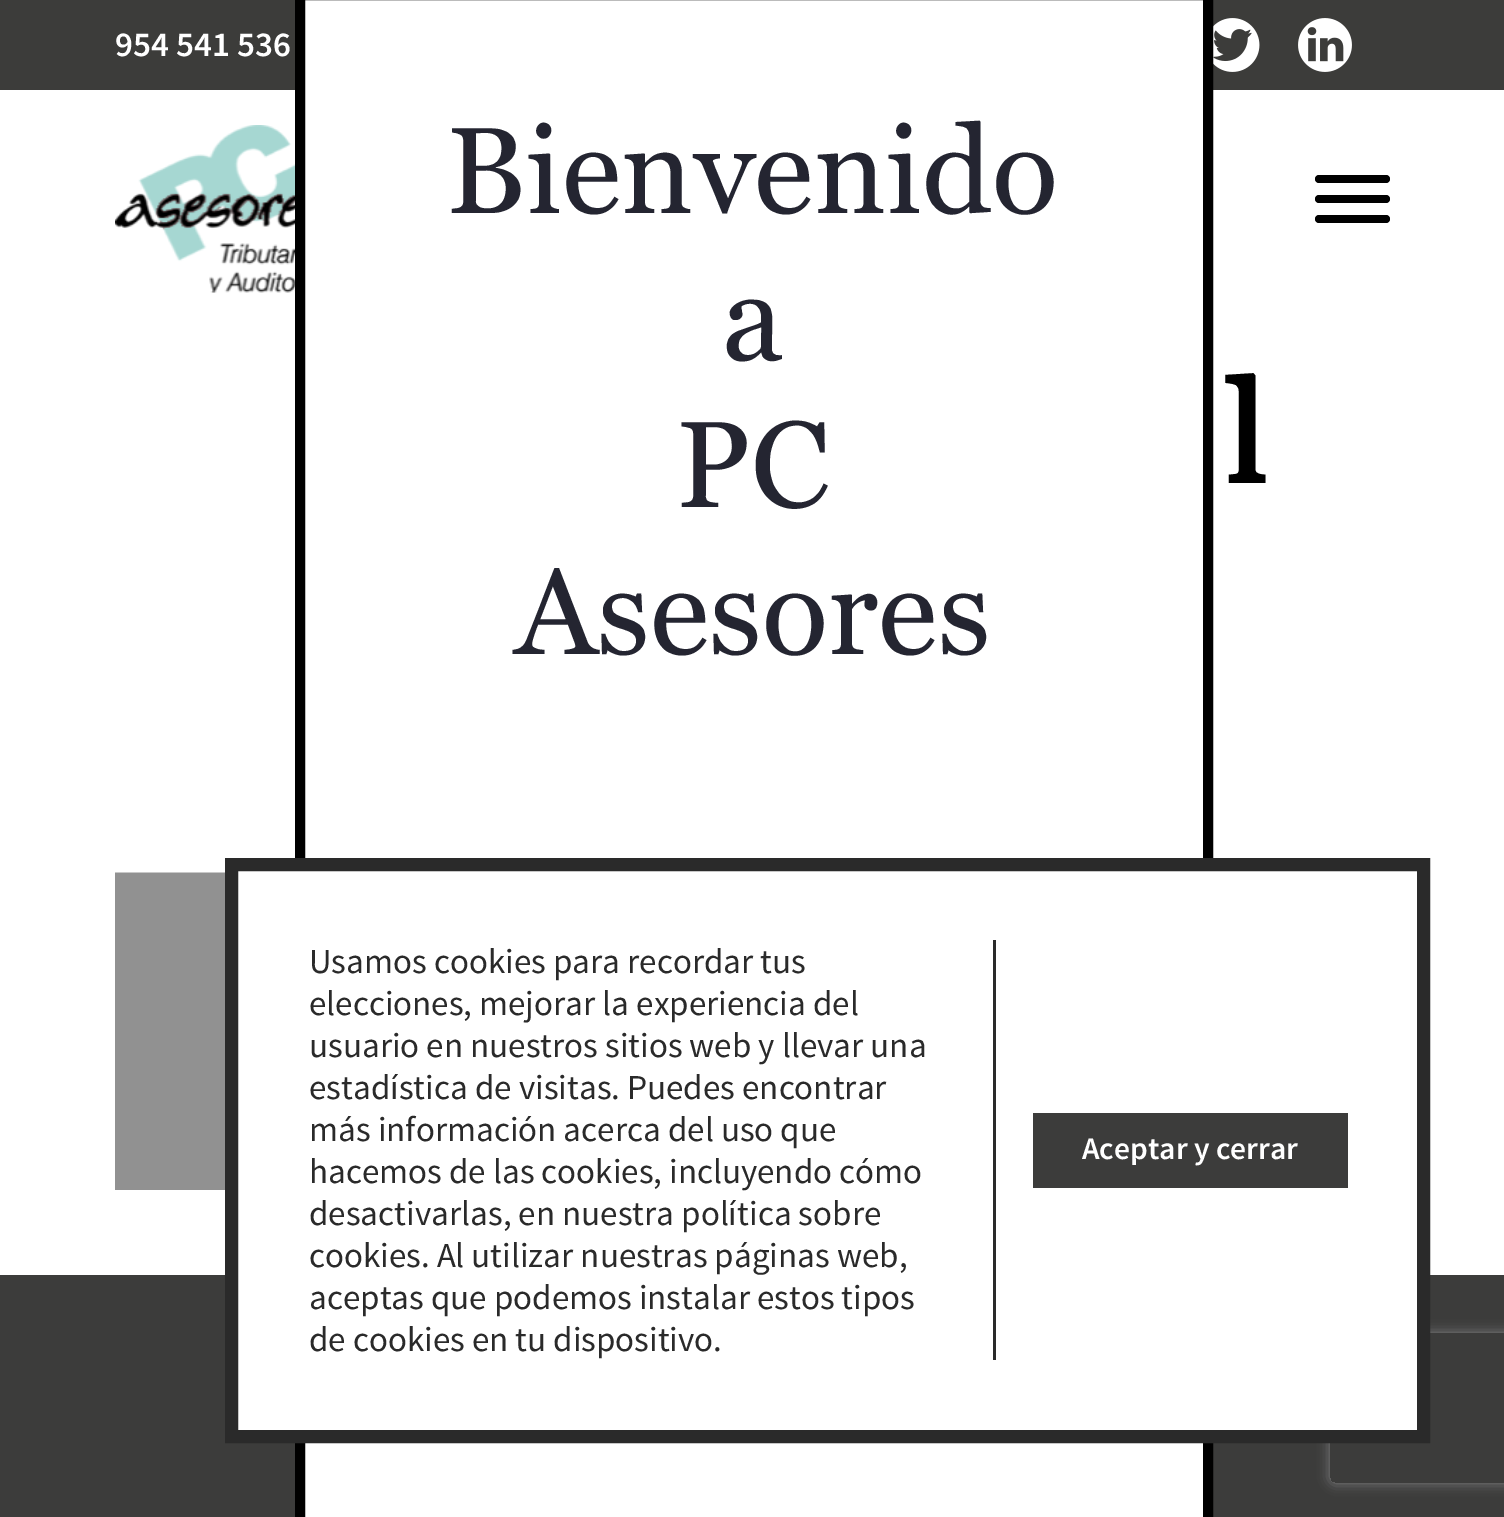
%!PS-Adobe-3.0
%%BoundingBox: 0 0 1504 1517
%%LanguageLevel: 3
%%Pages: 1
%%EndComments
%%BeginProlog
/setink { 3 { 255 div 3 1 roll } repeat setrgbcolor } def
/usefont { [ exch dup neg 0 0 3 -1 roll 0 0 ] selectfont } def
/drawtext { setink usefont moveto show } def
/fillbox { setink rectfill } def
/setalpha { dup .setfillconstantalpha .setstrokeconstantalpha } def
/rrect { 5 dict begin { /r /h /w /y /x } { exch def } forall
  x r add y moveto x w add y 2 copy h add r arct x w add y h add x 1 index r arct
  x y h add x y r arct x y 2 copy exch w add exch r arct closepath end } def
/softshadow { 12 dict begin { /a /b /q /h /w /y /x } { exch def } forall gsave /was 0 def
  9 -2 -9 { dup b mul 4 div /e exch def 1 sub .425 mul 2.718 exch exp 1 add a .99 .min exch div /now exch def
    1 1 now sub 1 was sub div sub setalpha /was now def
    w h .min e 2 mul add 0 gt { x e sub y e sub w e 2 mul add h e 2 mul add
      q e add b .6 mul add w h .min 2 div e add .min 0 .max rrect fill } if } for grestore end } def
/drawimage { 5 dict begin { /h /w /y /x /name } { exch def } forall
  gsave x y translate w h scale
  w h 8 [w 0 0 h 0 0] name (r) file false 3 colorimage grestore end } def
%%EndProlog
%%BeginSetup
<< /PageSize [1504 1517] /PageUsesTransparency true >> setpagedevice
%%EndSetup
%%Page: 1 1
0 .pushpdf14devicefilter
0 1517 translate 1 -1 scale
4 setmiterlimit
0 0 1504 1517 255 255 255 fillbox
0 0 1504 90 60 60 58 fillbox
(954 541 536) 115 56 /SourceSansPro-SemiBold 35 255 255 255 drawtext
(assets/img1.rgb) 1213 18 47 54 drawimage
(assets/img2.rgb) 1298 18 54 54 drawimage
0 1275 1504 242 60 60 59 fillbox
255 255 255 setink
300 -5 moveto 1208 -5 lineto 1208 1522 lineto 300 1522 lineto closepath gsave fill grestore
0 0 0 setink
10 setlinewidth
stroke
(Bienvenido) 446 213 /Georgia-Regular 122.5 36 37 49 drawtext
(a) 722 360 /Georgia-Regular 122.5 36 37 49 drawtext
(PC) 676 507 /Georgia-Regular 122.5 36 37 49 drawtext
(Asesores) 515 654 /Georgia-Regular 122.5 36 37 49 drawtext
(assets/img3.rgb) 115 125 180 168 drawimage
0 0 0 setink
1315 175 75 8 4 rrect fill
1315 195 75 8 4 rrect fill
1315 215 75 8 4 rrect fill
(l) 1225 483 /Georgia-Bold 140 0 0 0 drawtext
(assets/img4.rgb) 115 872 110 318 drawimage
gsave
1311 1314 moveto 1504 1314 lineto 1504 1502 lineto 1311 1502 lineto closepath 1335 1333 moveto 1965 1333 lineto 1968 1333 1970 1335 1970 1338 curveto 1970 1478 lineto 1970 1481 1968 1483 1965 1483 curveto 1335 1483 lineto 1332 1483 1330 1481 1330 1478 curveto 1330 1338 lineto 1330 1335 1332 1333 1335 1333 curveto closepath eoclip newpath
128 128 128 setink
1330 1333 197 150 5 6 1 softshadow
grestore
255 255 255 setink
231.5 864.5 moveto 1423.5 864.5 lineto 1423.5 1436.5 lineto 231.5 1436.5 lineto closepath gsave fill grestore
42 42 42 setink
13 setlinewidth
stroke
993 940 3 420 42 42 42 fillbox
(Usamos cookies para recordar tus) 309 973 /SourceSansPro-Regular 35 42 42 42 drawtext
(elecciones, mejorar la experiencia del) 309 1015 /SourceSansPro-Regular 35 42 42 42 drawtext
(usuario en nuestros sitios web y llevar una) 309 1057 /SourceSansPro-Regular 35 42 42 42 drawtext
(estadística de visitas. Puedes encontrar) 309 1099 /SourceSansPro-Regular 35 42 42 42 drawtext
(más información acerca del uso que) 309 1141 /SourceSansPro-Regular 35 42 42 42 drawtext
(hacemos de las cookies, incluyendo cómo) 309 1183 /SourceSansPro-Regular 35 42 42 42 drawtext
(desactivarlas, en nuestra política sobre) 309 1225 /SourceSansPro-Regular 35 42 42 42 drawtext
(cookies. Al utilizar nuestras páginas web,) 309 1267 /SourceSansPro-Regular 35 42 42 42 drawtext
(aceptas que podemos instalar estos tipos) 309 1309 /SourceSansPro-Regular 35 42 42 42 drawtext
(de cookies en tu dispositivo.) 309 1351 /SourceSansPro-Regular 35 42 42 42 drawtext
1033 1113 315 75 60 60 59 fillbox
(Aceptar y cerrar) 1082 1159 /SourceSansPro-SemiBold 31.5 255 255 255 drawtext
.poppdf14devicefilter showpage
%%EOF
